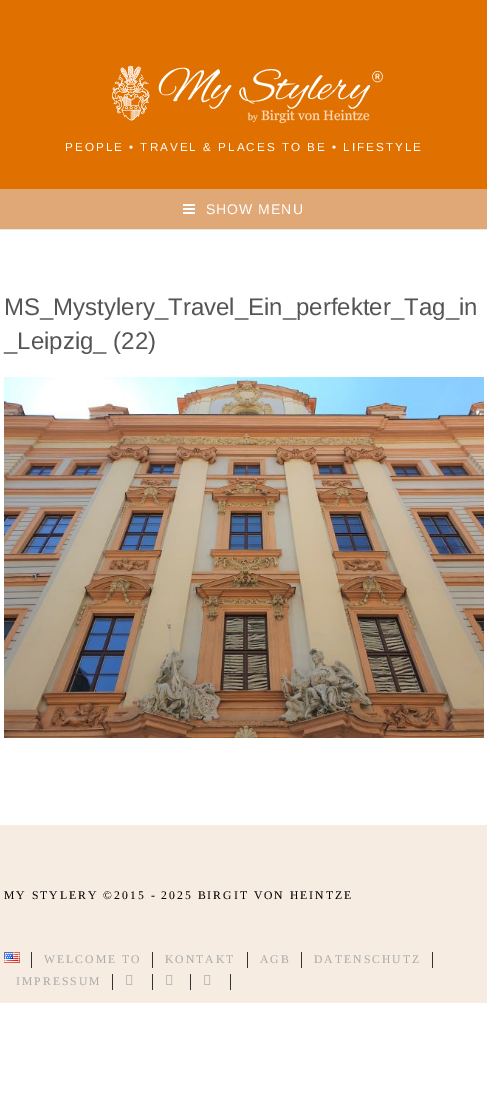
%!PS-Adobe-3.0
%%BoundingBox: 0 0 487 1095
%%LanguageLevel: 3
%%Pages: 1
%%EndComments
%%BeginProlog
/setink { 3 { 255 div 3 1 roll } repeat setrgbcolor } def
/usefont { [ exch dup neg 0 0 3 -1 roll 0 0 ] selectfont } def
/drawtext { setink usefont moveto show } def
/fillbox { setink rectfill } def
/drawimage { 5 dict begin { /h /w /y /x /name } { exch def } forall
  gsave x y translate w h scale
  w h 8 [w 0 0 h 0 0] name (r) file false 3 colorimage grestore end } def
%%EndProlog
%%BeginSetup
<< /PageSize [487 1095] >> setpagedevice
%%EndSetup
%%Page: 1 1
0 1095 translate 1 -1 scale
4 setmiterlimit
0 0 487 1095 255 255 255 fillbox
0 0 487 189 224 112 0 fillbox
(assets/img1.rgb) 112 65 271 59 drawimage
/LiberationSans-Regular 11.7 usefont
255 255 255 setink
65 151 moveto 2 0 (PEOPLE • TRAVEL & PLACES TO BE • LIFESTYLE) ashow
0 189 487 40 224 168 118 fillbox
0 229 487 1 231 231 231 fillbox
(assets/img2.rgb) 183 204 12 10 drawimage
/LiberationSans-Regular 14 usefont
255 255 255 setink
206 214 moveto 1 0 (SHOW MENU) ashow
(MS_Mystylery_Travel_Ein_perfekter_Tag_in) 4 315 /LiberationSans-Regular 24 85 85 85 drawtext
(_Leipzig_ \(22\)) 4 349 /LiberationSans-Regular 24 85 85 85 drawtext
(assets/img3.rgb) 4 377 480 361 drawimage
0 825 487 178 247 236 225 fillbox
/LiberationSerif-Regular 11.7 usefont
2 0 0 setink
4 899 moveto 2 0 (MY STYLERY ©2015 - 2025 BIRGIT VON HEINTZE) ashow
(assets/img4.rgb) 4 952 16 11 drawimage
31 952 1 16 51 51 51 fillbox
170 170 170 setink
44 963 moveto 2 0 (WELCOME TO) ashow
152 952 1 16 51 51 51 fillbox
170 170 170 setink
165 963 moveto 2 0 (KONTAKT) ashow
247 952 1 16 51 51 51 fillbox
170 170 170 setink
260 963 moveto 2 0 (AGB) ashow
301 952 1 16 51 51 51 fillbox
170 170 170 setink
314 963 moveto 2 0 (DATENSCHUTZ) ashow
432 952 1 16 51 51 51 fillbox
170 170 170 setink
16 985 moveto 2 0 (IMPRESSUM) ashow
112 974 1 16 51 51 51 fillbox
(assets/img5.rgb) 126 975 7 10 drawimage
152 974 1 16 51 51 51 fillbox
(assets/img5.rgb) 166 975 7 10 drawimage
190 974 1 16 51 51 51 fillbox
(assets/img5.rgb) 204 975 7 10 drawimage
230 974 1 16 51 51 51 fillbox
showpage
%%EOF
